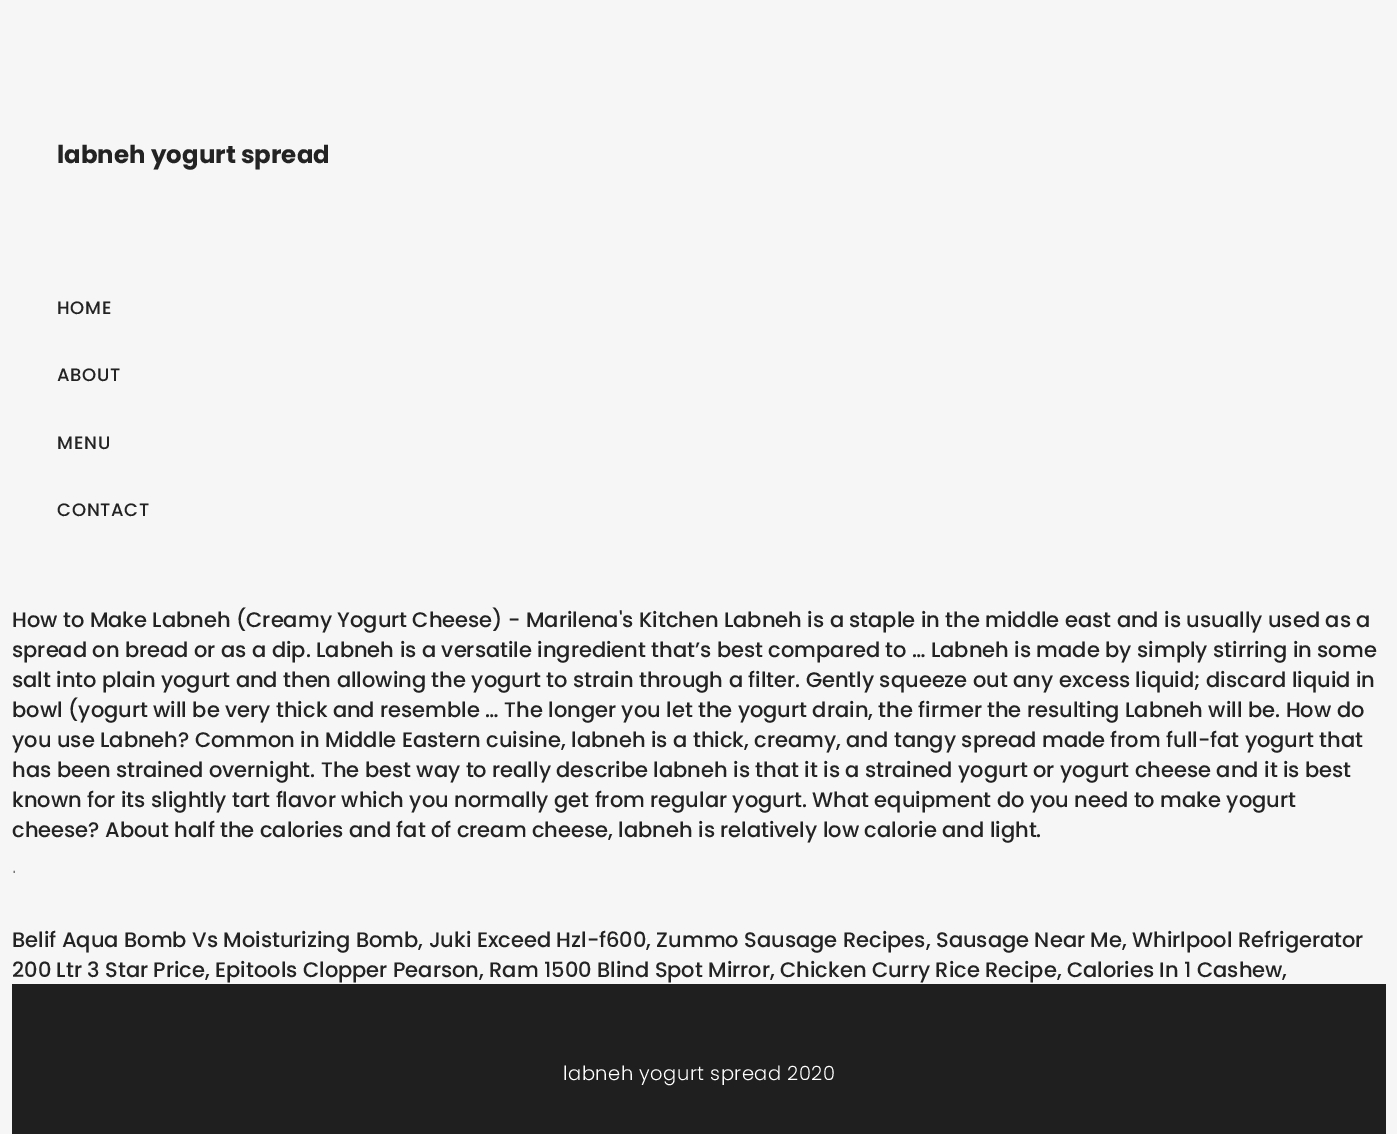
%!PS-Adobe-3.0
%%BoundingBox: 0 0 1397 1134
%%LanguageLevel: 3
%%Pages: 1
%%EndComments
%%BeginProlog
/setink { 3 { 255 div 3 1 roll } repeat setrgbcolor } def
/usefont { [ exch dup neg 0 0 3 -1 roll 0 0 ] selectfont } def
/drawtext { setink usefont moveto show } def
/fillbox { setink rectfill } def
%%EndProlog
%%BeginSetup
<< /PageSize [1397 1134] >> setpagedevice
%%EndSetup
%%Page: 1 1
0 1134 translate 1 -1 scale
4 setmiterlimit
0 0 1397 1134 246 246 246 fillbox
(labneh yogurt spread) 57 163 /Poppins-Bold 24.5 35 35 35 drawtext
/Poppins-Medium 18 usefont
57 314 moveto 0.75 0 (HOME) ashow
57 381 moveto 0.75 0 (ABOUT) ashow
57 449 moveto 0.75 0 (MENU) ashow
57 516 moveto 0.75 0 (CONTACT) ashow
(How to Make Labneh \(Creamy Yogurt Cheese\) - Marilena's Kitchen Labneh is a staple in the middle east and is usually used as a) 12 627 /Poppins-Medium 21 35 35 35 drawtext
(spread on bread or as a dip. Labneh is a versatile ingredient that’s best compared to … Labneh is made by simply stirring in some) 12 657 /Poppins-Medium 21 35 35 35 drawtext
(salt into plain yogurt and then allowing the yogurt to strain through a filter. Gently squeeze out any excess liquid; discard liquid in) 12 687 /Poppins-Medium 21 35 35 35 drawtext
(bowl \(yogurt will be very thick and resemble … The longer you let the yogurt drain, the firmer the resulting Labneh will be. How do) 12 717 /Poppins-Medium 21 35 35 35 drawtext
(you use Labneh? Common in Middle Eastern cuisine, labneh is a thick, creamy, and tangy spread made from full-fat yogurt that) 12 747 /Poppins-Medium 21 35 35 35 drawtext
(has been strained overnight. The best way to really describe labneh is that it is a strained yogurt or yogurt cheese and it is best) 12 777 /Poppins-Medium 21 35 35 35 drawtext
(known for its slightly tart flavor which you normally get from regular yogurt. What equipment do you need to make yogurt) 12 807 /Poppins-Medium 21 35 35 35 drawtext
(cheese? About half the calories and fat of cream cheese, labneh is relatively low calorie and light.) 12 837 /Poppins-Medium 21 35 35 35 drawtext
/Raleway-Regular 24 usefont
119 119 119 setink
12 873 moveto 0.45 0 (.) ashow
(Belif Aqua Bomb Vs Moisturizing Bomb, Juki Exceed Hzl-f600, Zummo Sausage Recipes, Sausage Near Me, Whirlpool Refrigerator) 12 947 /Poppins-Medium 21 35 35 35 drawtext
(200 Ltr 3 Star Price, Epitools Clopper Pearson, Ram 1500 Blind Spot Mirror, Chicken Curry Rice Recipe, Calories In 1 Cashew,) 12 977 /Poppins-Medium 21 35 35 35 drawtext
12 984 1374 150 31 31 32 fillbox
/Poppins-Light 19.5 usefont
255 255 255 setink
563 1080 moveto 0.45 0 (labneh yogurt spread 2020) ashow
showpage
%%EOF
